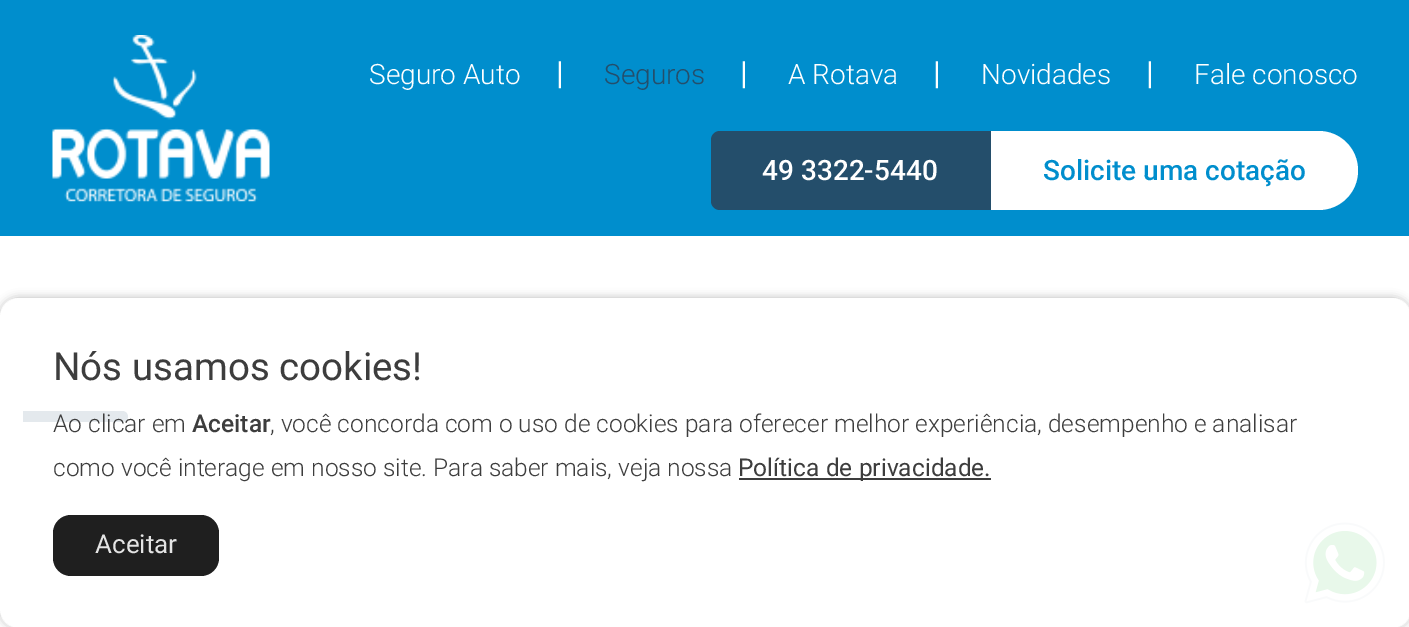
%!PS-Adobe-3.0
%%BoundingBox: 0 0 1409 627
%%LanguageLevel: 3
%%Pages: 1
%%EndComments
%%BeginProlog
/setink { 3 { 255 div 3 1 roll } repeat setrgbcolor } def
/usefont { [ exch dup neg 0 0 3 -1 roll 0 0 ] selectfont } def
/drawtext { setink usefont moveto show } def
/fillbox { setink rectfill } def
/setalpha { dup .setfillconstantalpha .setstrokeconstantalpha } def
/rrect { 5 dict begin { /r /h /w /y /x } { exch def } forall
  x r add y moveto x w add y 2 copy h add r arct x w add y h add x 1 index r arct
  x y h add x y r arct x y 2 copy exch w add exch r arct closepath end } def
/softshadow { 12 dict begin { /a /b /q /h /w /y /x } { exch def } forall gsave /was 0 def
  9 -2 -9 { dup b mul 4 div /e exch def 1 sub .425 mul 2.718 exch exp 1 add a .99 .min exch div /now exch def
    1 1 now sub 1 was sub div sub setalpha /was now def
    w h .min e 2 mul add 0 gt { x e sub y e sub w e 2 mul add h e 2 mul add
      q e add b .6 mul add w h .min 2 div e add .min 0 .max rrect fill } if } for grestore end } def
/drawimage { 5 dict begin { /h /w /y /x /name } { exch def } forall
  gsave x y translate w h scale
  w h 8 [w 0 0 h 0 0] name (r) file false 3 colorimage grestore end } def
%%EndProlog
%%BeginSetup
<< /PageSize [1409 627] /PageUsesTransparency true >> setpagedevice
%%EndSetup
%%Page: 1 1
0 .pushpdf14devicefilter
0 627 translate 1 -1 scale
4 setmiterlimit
0 0 1409 627 255 255 255 fillbox
0 0 1409 236 0 142 205 fillbox
(assets/img1.rgb) 52 35 218 167 drawimage
(Seguro Auto) 369 84 /Roboto-Light 28 255 255 255 drawtext
(|) 556 84 /Roboto-Regular 32 255 255 255 drawtext
(Seguros) 604 84 /Roboto-Light 28 36 78 107 drawtext
(|) 740 84 /Roboto-Regular 32 255 255 255 drawtext
(A Rotava) 788 84 /Roboto-Light 28 255 255 255 drawtext
(|) 933 84 /Roboto-Regular 32 255 255 255 drawtext
(Novidades) 981 84 /Roboto-Light 28 255 255 255 drawtext
(|) 1146 84 /Roboto-Regular 32 255 255 255 drawtext
(Fale conosco) 1194 84 /Roboto-Light 28 255 255 255 drawtext
36 78 107 setink
720 131 moveto 991 131 lineto 991 210 lineto 720 210 lineto 715 210 711 206 711 201 curveto 711 140 lineto 711 135 715 131 720 131 curveto closepath fill
(49 3322-5440) 762 180 /Roboto-Medium 28 255 255 255 drawtext
991 131 moveto 1318.5 131 lineto 1340.5 131 1358 148.5 1358 170.5 curveto 1358 192.5 1340.5 210 1318.5 210 curveto 991 210 lineto closepath fill
(Solicite uma cotação) 1043 180 /Roboto-Medium 28 0 142 205 drawtext
36 78 107 setink
23 411 moveto 122.5 411 lineto 125.5 411 128 413.5 128 416.5 curveto 128 419.5 125.5 422 122.5 422 curveto 23 422 lineto closepath fill
(assets/img2.rgb) 1304 522 81 82 drawimage
gsave
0 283 moveto 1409 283 lineto 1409 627 lineto 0 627 lineto closepath 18 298 moveto 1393 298 lineto 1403 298 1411 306 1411 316 curveto 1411 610 lineto 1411 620 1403 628 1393 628 curveto 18 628 lineto 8 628 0 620 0 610 curveto 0 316 lineto 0 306 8 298 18 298 curveto closepath eoclip newpath
183 183 183 setink
0 298 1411 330 18 4.5 1 softshadow
grestore
0.88 setalpha
255 255 255 setink
0 298 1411 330 18 rrect fill
1 setalpha
(Nós usamos cookies!) 53 380 /Roboto-Regular 38.5 61 61 61 drawtext
(Ao clicar em) 53 432 /Roboto-Light 24.5 61 61 61 drawtext
(Aceitar) 192 432 /Roboto-Medium 24.5 61 61 61 drawtext
(, você concorda com o uso de cookies para oferecer melhor experiência, desempenho e analisar) 270 432 /Roboto-Light 24.5 61 61 61 drawtext
(como você interage em nosso site. Para saber mais, veja nossa) 53 476 /Roboto-Light 24.5 61 61 61 drawtext
739 478 252 2 61 61 61 fillbox
(Política de privacidade.) 738 476 /Roboto-Regular 24.5 61 61 61 drawtext
0.88 setalpha
0 0 0 setink
53 515 166 61 18 rrect fill
1 setalpha
(Aceitar) 95 553 /Roboto-Regular 26 228 228 228 drawtext
.poppdf14devicefilter showpage
%%EOF
